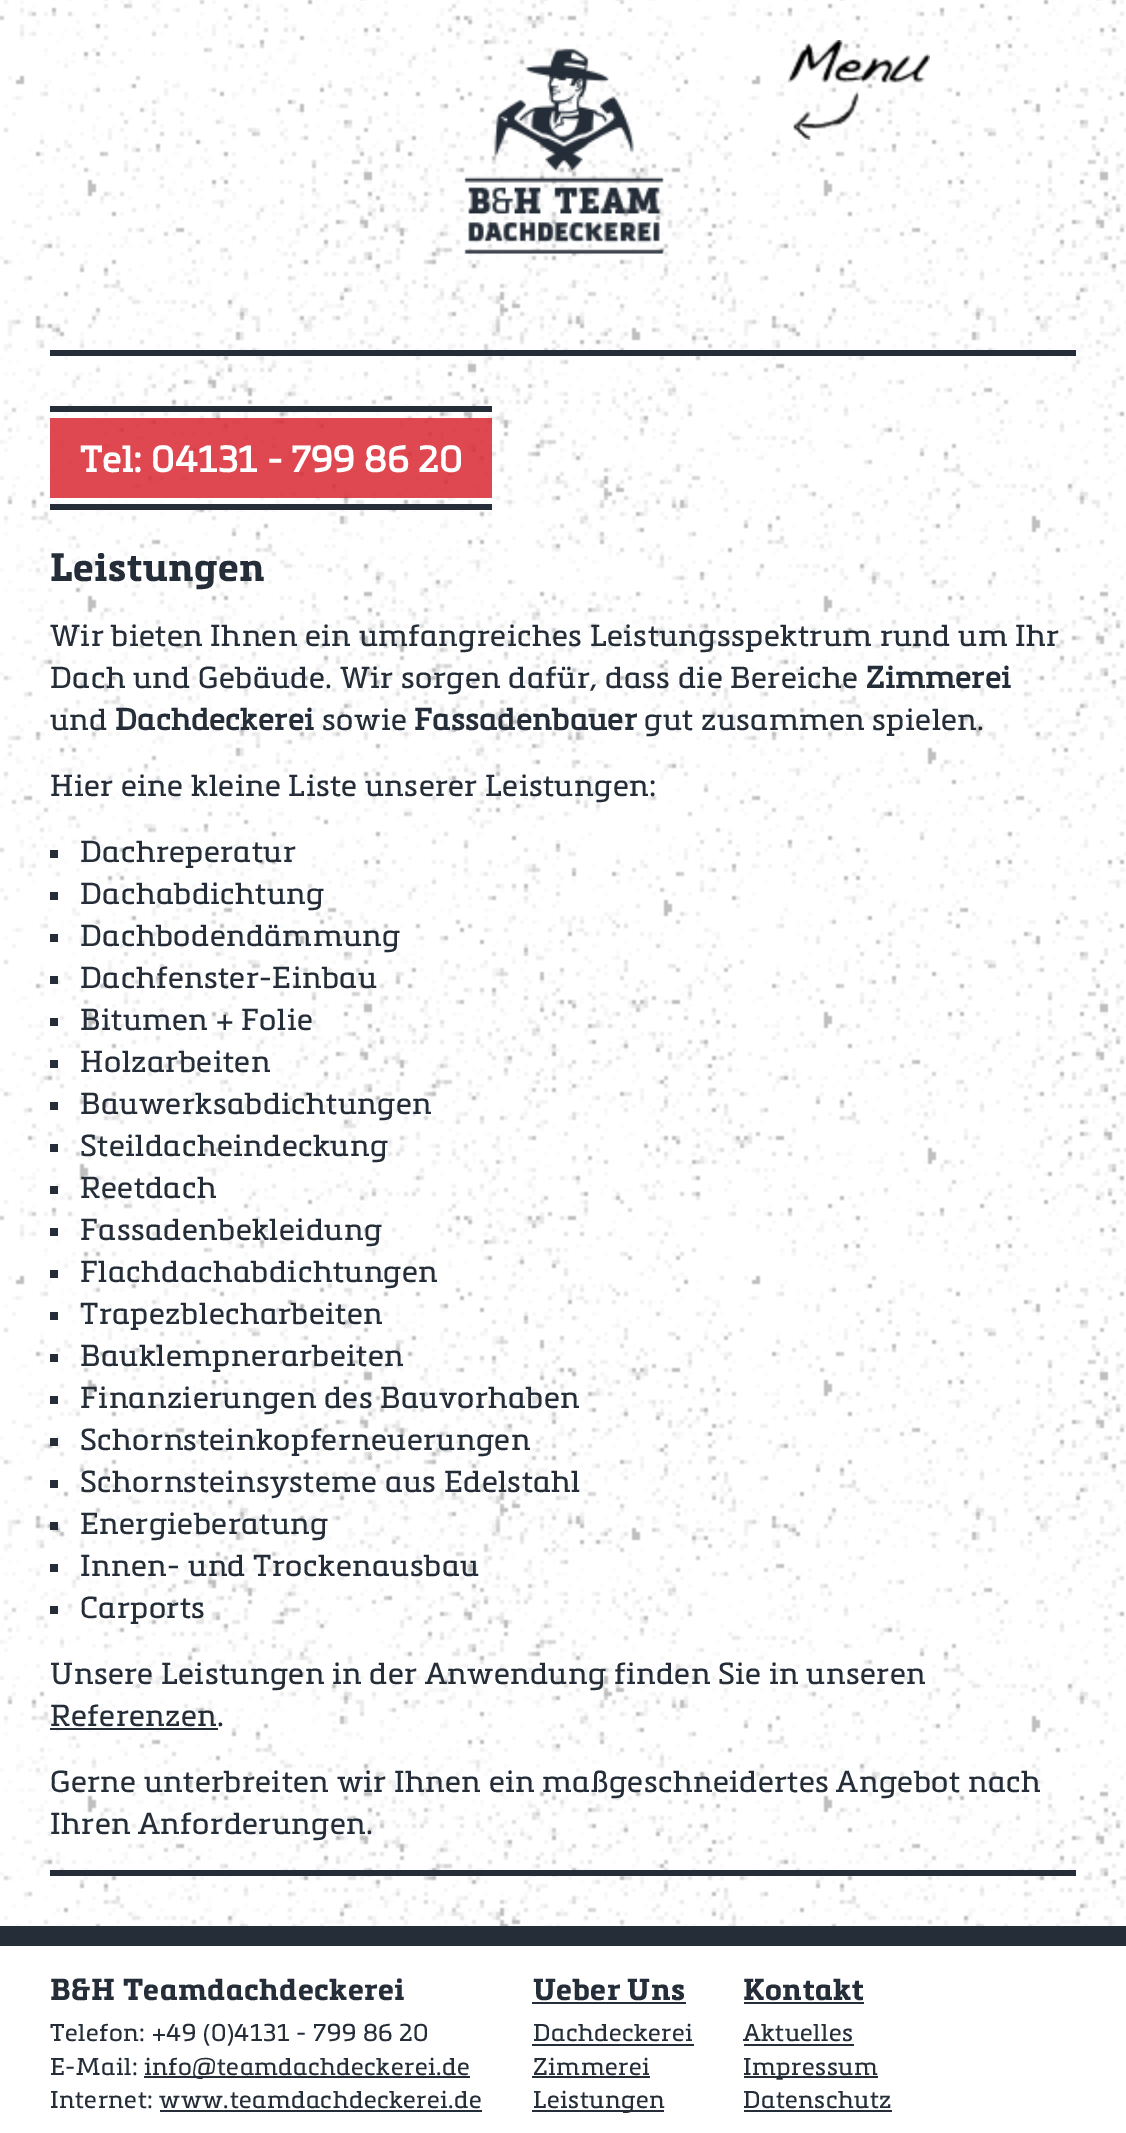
%!PS-Adobe-3.0
%%BoundingBox: 0 0 1126 2133
%%LanguageLevel: 3
%%Pages: 1
%%EndComments
%%BeginProlog
/setink { 3 { 255 div 3 1 roll } repeat setrgbcolor } def
/usefont { [ exch dup neg 0 0 3 -1 roll 0 0 ] selectfont } def
/fillbox { setink rectfill } def
/setalpha { dup .setfillconstantalpha .setstrokeconstantalpha } def
/drawimage { 5 dict begin { /h /w /y /x /name } { exch def } forall
  gsave x y translate w h scale
  w h 8 [w 0 0 h 0 0] name (r) file false 3 colorimage grestore end } def
%%EndProlog
%%BeginSetup
<< /PageSize [1126 2133] /PageUsesTransparency true >> setpagedevice
%%EndSetup
%%Page: 1 1
0 .pushpdf14devicefilter
0 2133 translate 1 -1 scale
4 setmiterlimit
0 0 1126 2133 255 255 255 fillbox
(assets/img1.rgb) 0 0 1126 1926 drawimage
(assets/img2.rgb) 464 48 200 206 drawimage
(assets/img3.rgb) 788 40 142 100 drawimage
50 350 1026 6 37 46 56 fillbox
50 1870 1026 6 37 46 56 fillbox
50 406 442 6 37 46 56 fillbox
50 504 442 6 37 46 56 fillbox
0.85 setalpha
50 418 442 80 218 40 51 fillbox
/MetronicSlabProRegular-Bold 36 usefont
1 setalpha
255 255 255 setink
80 472 moveto 0.6 0 (Tel: 04131 - 799 86 20) ashow
/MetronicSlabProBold-Bold 39 usefont
37 46 56 setink
50 581 moveto 0.6 0 (Leistungen) ashow
/MetronicSlabProRegular-Regular 30 usefont
50 646 moveto 0.6 0 (Wir bieten Ihnen ein umfangreiches Leistungsspektrum rund um Ihr) ashow
50 688 moveto 0.6 0 (Dach und Gebäude. Wir sorgen dafür, dass die Bereiche) ashow
/MetronicSlabProRegular-Bold 30 usefont
866 688 moveto 0.6 0 (Zimmerei) ashow
/MetronicSlabProRegular-Regular 30 usefont
50 730 moveto 0.6 0 (und) ashow
/MetronicSlabProRegular-Bold 30 usefont
115 730 moveto 0.6 0 (Dachdeckerei) ashow
/MetronicSlabProRegular-Regular 30 usefont
322 730 moveto 0.6 0 (sowie) ashow
/MetronicSlabProRegular-Bold 30 usefont
414 730 moveto 0.6 0 (Fassadenbauer) ashow
/MetronicSlabProRegular-Regular 30 usefont
644 730 moveto 0.6 0 (gut zusammen spielen.) ashow
50 796 moveto 0.6 0 (Hier eine kleine Liste unserer Leistungen:) ashow
50 850 8 8 37 46 56 fillbox
80 862 moveto 0.6 0 (Dachreperatur) ashow
50 892 8 8 37 46 56 fillbox
80 904 moveto 0.6 0 (Dachabdichtung) ashow
50 934 8 8 37 46 56 fillbox
80 946 moveto 0.6 0 (Dachbodendämmung) ashow
50 976 8 8 37 46 56 fillbox
80 988 moveto 0.6 0 (Dachfenster-Einbau) ashow
50 1018 8 8 37 46 56 fillbox
80 1030 moveto 0.6 0 (Bitumen + Folie) ashow
50 1060 8 8 37 46 56 fillbox
80 1072 moveto 0.6 0 (Holzarbeiten) ashow
50 1102 8 8 37 46 56 fillbox
80 1114 moveto 0.6 0 (Bauwerksabdichtungen) ashow
50 1144 8 8 37 46 56 fillbox
80 1156 moveto 0.6 0 (Steildacheindeckung) ashow
50 1186 8 8 37 46 56 fillbox
80 1198 moveto 0.6 0 (Reetdach) ashow
50 1228 8 8 37 46 56 fillbox
80 1240 moveto 0.6 0 (Fassadenbekleidung) ashow
50 1270 8 8 37 46 56 fillbox
80 1282 moveto 0.6 0 (Flachdachabdichtungen) ashow
50 1312 8 8 37 46 56 fillbox
80 1324 moveto 0.6 0 (Trapezblecharbeiten) ashow
50 1354 8 8 37 46 56 fillbox
80 1366 moveto 0.6 0 (Bauklempnerarbeiten) ashow
50 1396 8 8 37 46 56 fillbox
80 1408 moveto 0.6 0 (Finanzierungen des Bauvorhaben) ashow
50 1438 8 8 37 46 56 fillbox
80 1450 moveto 0.6 0 (Schornsteinkopferneuerungen) ashow
50 1480 8 8 37 46 56 fillbox
80 1492 moveto 0.6 0 (Schornsteinsysteme aus Edelstahl) ashow
50 1522 8 8 37 46 56 fillbox
80 1534 moveto 0.6 0 (Energieberatung) ashow
50 1564 8 8 37 46 56 fillbox
80 1576 moveto 0.6 0 (Innen- und Trockenausbau) ashow
50 1606 8 8 37 46 56 fillbox
80 1618 moveto 0.6 0 (Carports) ashow
50 1684 moveto 0.6 0 (Unsere Leistungen in der Anwendung finden Sie in unseren) ashow
50 1726 moveto 0.6 0 (Referenzen.) ashow
50 1728 168 2 37 46 56 fillbox
50 1792 moveto 0.6 0 (Gerne unterbreiten wir Ihnen ein maßgeschneidertes Angebot nach) ashow
50 1834 moveto 0.6 0 (Ihren Anforderungen.) ashow
0 1926 1126 20 37 46 56 fillbox
/MetronicSlabProBold-Bold 30 usefont
50 2000 moveto 0.6 0 (B&H Teamdachdeckerei) ashow
/MetronicSlabProRegular-Regular 24 usefont
50 2041 moveto 0.6 0 (Telefon: +49 \(0\)4131 - 799 86 20) ashow
50 2075 moveto 0.6 0 (E-Mail:) ashow
144 2076 326 2 37 46 56 fillbox
144 2075 moveto 0.6 0 (info@teamdachdeckerei.de) ashow
50 2108 moveto 0.6 0 (Internet: www.teamdachdeckerei.de) ashow
160 2110 322 2 37 46 56 fillbox
/MetronicSlabProBold-Bold 30 usefont
533 2000 moveto 0.6 0 (Ueber Uns) ashow
532 2002 154 2 37 46 56 fillbox
/MetronicSlabProRegular-Regular 24 usefont
533 2041 moveto 0.6 0 (Dachdeckerei) ashow
532 2044 162 2 37 46 56 fillbox
533 2075 moveto 0.6 0 (Zimmerei) ashow
532 2076 118 2 37 46 56 fillbox
532 2110 132 2 37 46 56 fillbox
533 2108 moveto 0.6 0 (Leistungen) ashow
/MetronicSlabProBold-Bold 30 usefont
743 2000 moveto 0.6 0 (Kontakt) ashow
744 2002 120 2 37 46 56 fillbox
/MetronicSlabProRegular-Regular 24 usefont
743 2041 moveto 0.6 0 (Aktuelles) ashow
744 2044 110 2 37 46 56 fillbox
744 2076 134 2 37 46 56 fillbox
743 2075 moveto 0.6 0 (Impressum) ashow
743 2108 moveto 0.6 0 (Datenschutz) ashow
744 2110 148 2 37 46 56 fillbox
.poppdf14devicefilter showpage
%%EOF
